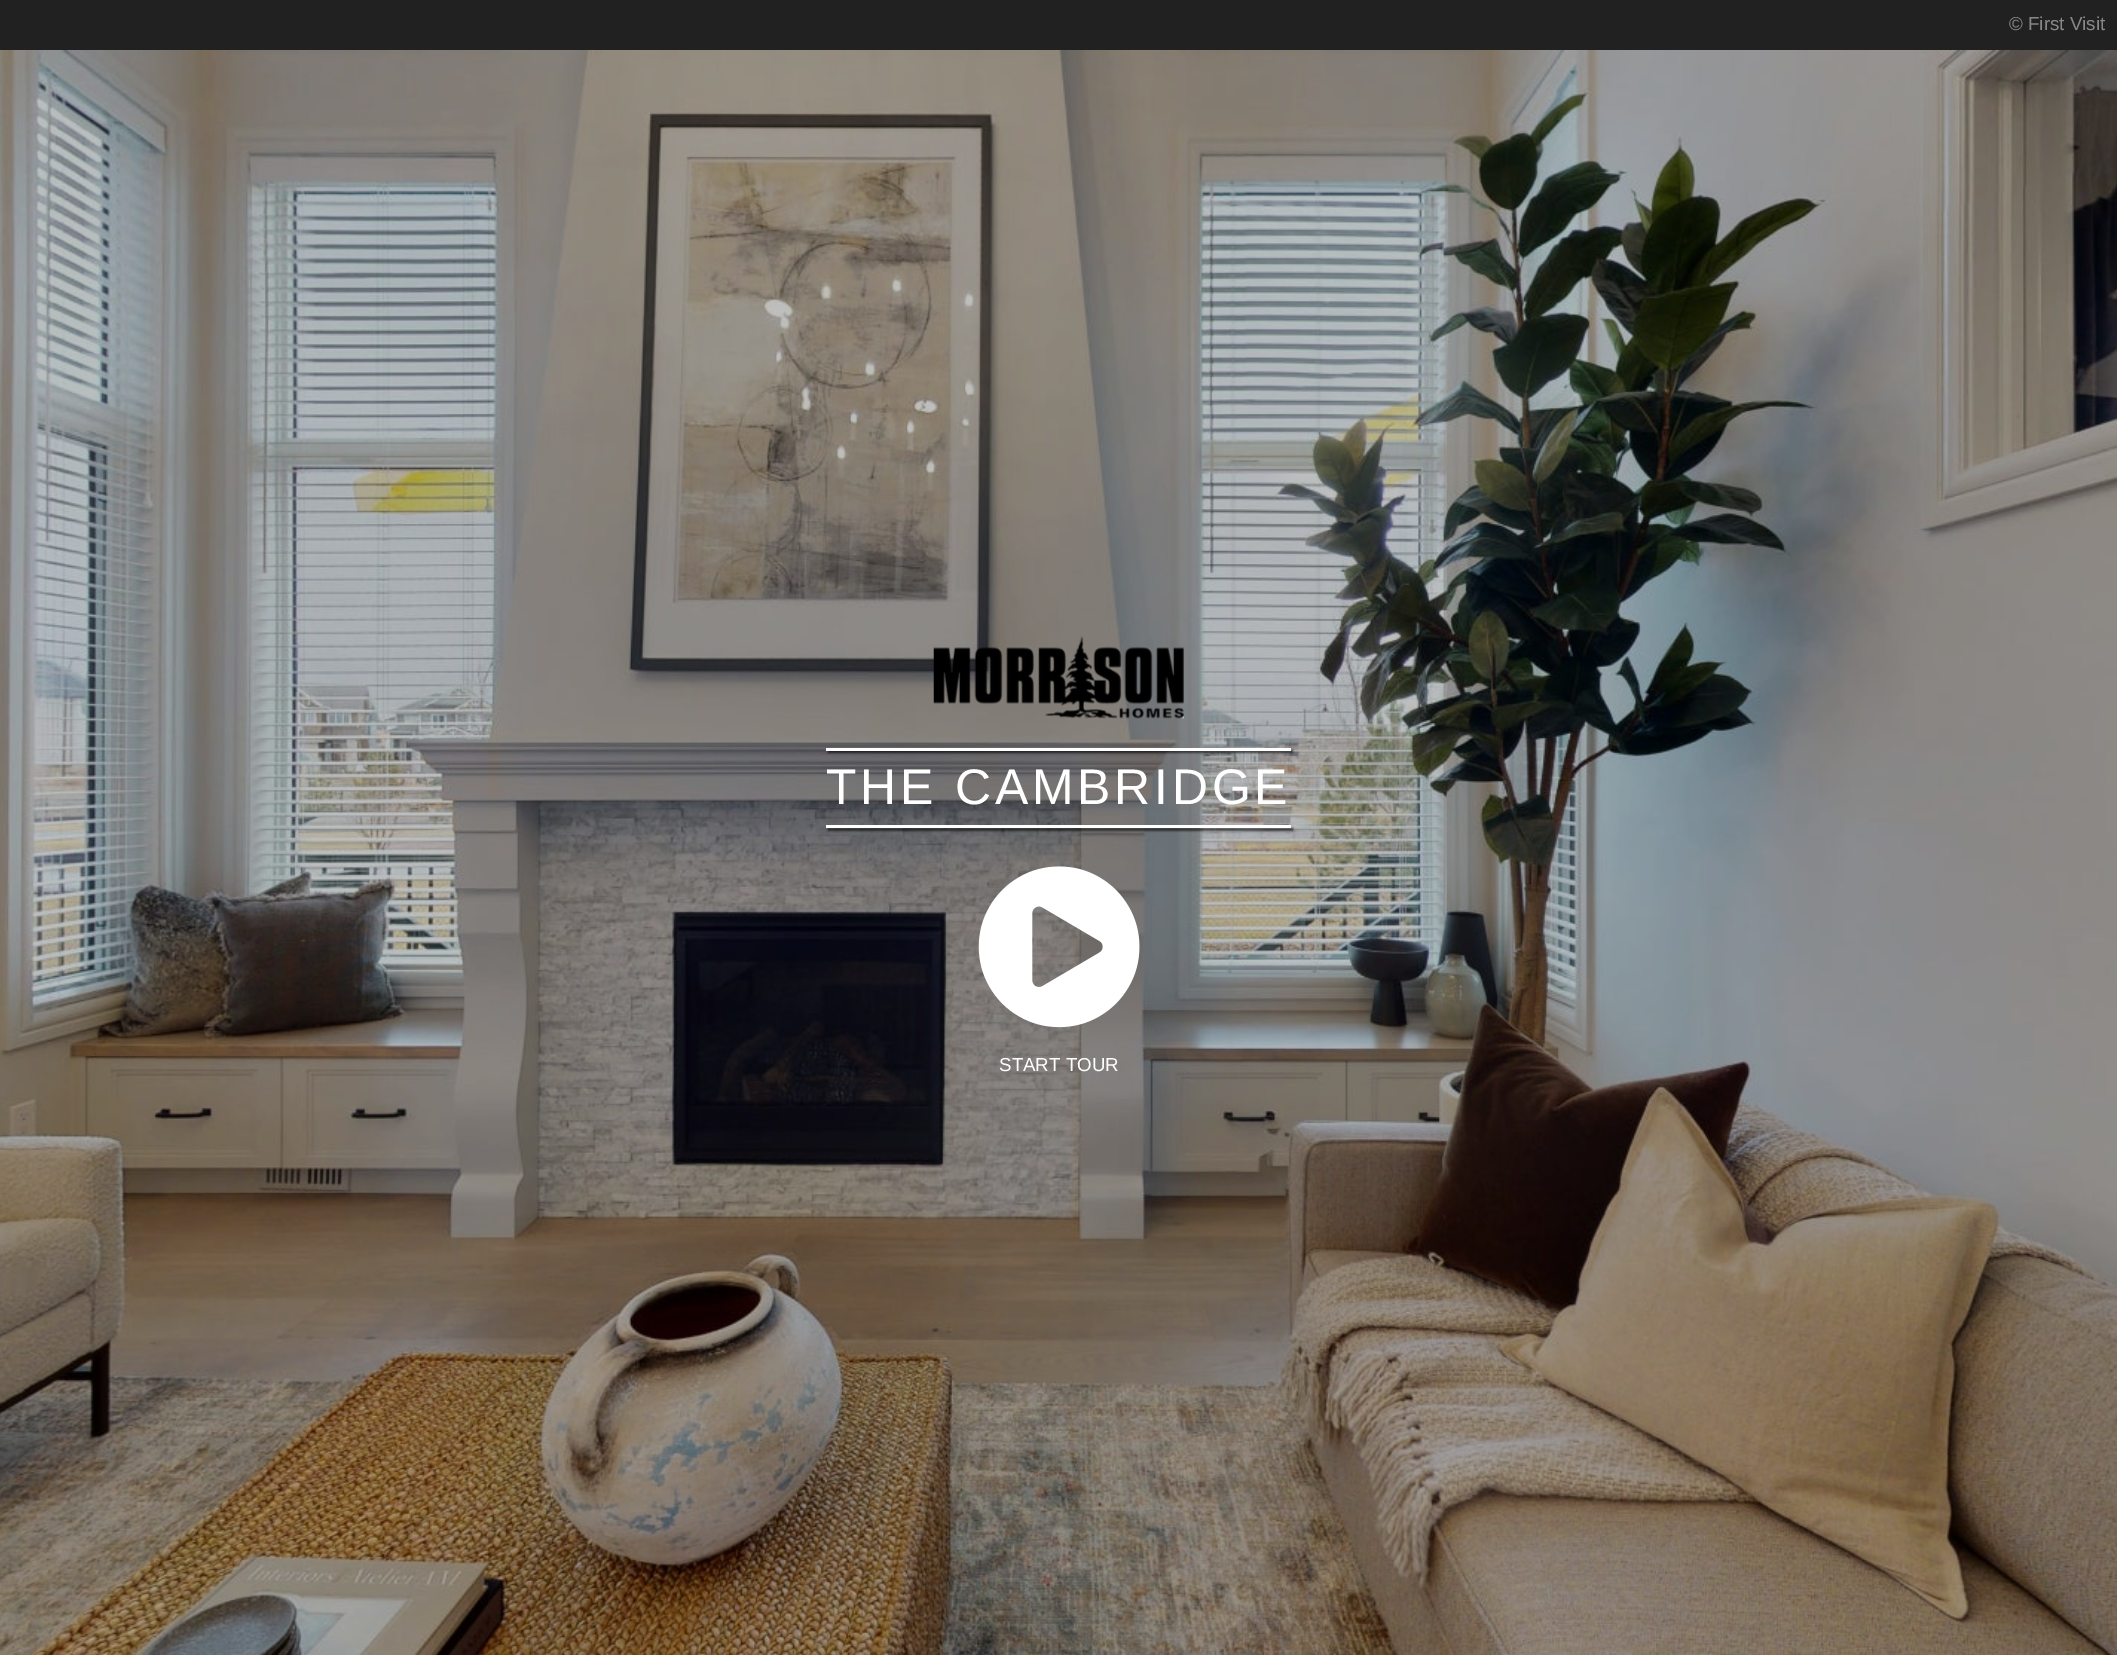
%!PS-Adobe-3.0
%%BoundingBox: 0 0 2117 1655
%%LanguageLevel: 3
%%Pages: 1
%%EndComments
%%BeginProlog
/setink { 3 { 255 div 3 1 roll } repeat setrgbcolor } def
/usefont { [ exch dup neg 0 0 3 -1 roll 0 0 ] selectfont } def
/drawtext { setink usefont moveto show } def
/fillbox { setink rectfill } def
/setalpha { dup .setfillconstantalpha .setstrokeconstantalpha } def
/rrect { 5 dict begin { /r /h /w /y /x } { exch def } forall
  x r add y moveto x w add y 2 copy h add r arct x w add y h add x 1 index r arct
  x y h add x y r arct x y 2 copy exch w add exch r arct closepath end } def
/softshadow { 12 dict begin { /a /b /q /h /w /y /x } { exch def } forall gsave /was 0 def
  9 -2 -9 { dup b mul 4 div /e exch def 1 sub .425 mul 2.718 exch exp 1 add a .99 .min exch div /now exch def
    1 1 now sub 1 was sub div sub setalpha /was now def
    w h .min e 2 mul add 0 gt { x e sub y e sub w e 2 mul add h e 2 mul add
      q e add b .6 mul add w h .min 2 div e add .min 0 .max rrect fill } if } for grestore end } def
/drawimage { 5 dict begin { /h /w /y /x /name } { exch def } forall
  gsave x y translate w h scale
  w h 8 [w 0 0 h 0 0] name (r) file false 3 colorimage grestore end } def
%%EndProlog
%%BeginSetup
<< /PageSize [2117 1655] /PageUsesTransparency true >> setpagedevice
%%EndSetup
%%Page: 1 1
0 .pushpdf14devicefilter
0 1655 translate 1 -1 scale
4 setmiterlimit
0 0 2117 1655 33 33 33 fillbox
(© First Visit) 2009 30 /LiberationSans-Regular 18.75 136 136 136 drawtext
(assets/img1.rgb) 0 50 2117 1605 drawimage
(assets/img2.rgb) 933 636 251 83 drawimage
0 0 0 setink
828 750 465 3 0 1 0.6 softshadow
826 748 465 3 255 255 255 fillbox
/LiberationSans-Regular 50 usefont
826 804 moveto 3.75 0 (THE CAMBRIDGE) ashow
0 0 0 setink
828 828 465 3 0 1 0.6 softshadow
826 825 465 3 255 255 255 fillbox
(assets/img3.rgb) 978 866 162 162 drawimage
(START TOUR) 999 1071 /LiberationSans-Regular 18.75 255 255 255 drawtext
.poppdf14devicefilter showpage
%%EOF
